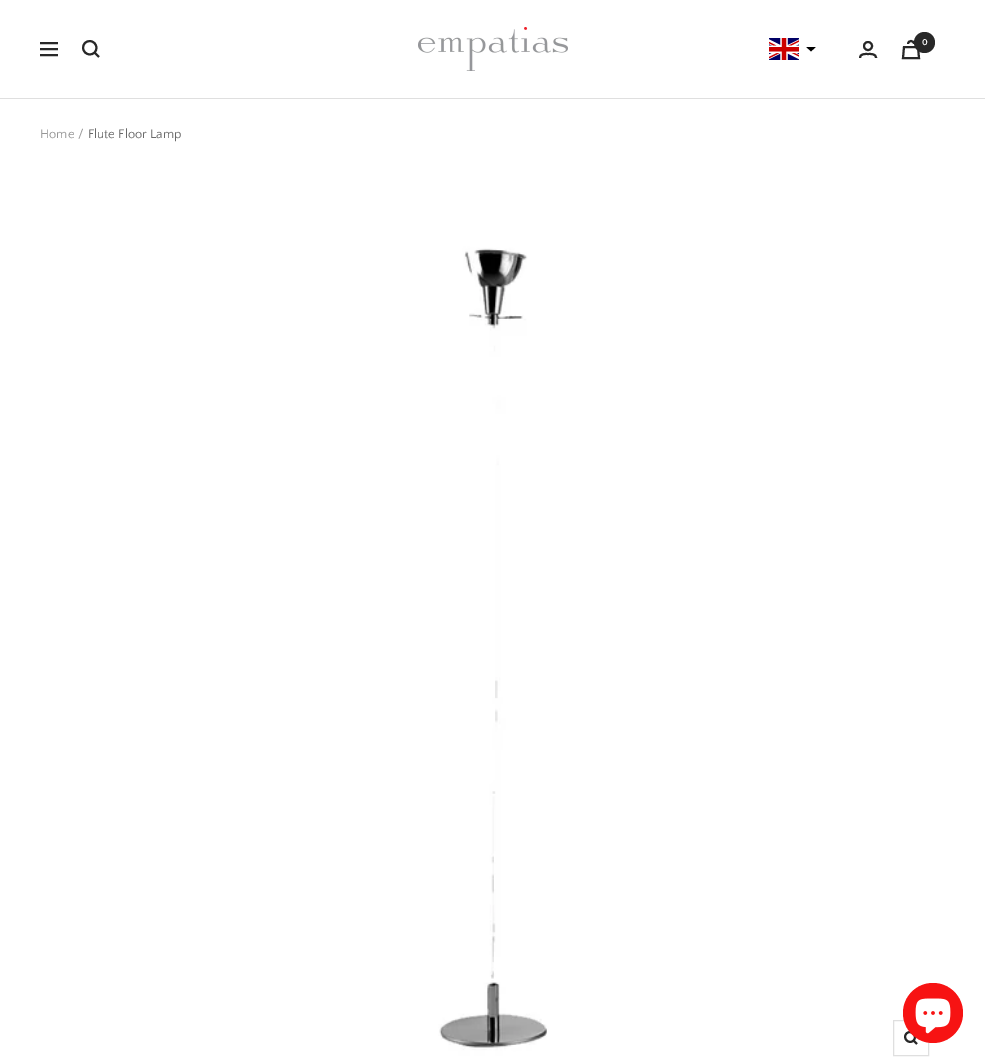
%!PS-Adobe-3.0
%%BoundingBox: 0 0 985 1064
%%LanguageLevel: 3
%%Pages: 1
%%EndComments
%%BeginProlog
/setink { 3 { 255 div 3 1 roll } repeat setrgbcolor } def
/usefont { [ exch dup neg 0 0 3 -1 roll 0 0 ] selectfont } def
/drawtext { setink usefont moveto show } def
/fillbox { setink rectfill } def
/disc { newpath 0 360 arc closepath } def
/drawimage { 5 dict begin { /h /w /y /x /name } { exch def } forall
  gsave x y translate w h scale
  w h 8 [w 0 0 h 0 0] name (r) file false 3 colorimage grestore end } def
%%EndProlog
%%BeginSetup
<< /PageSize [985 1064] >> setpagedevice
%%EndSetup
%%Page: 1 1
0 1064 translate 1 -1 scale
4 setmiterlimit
0 0 985 1064 255 255 255 fillbox
0 98 985 1 223 223 223 fillbox
40 40 40 setink
2 setlinewidth
40 43 moveto 58 43 lineto 40 55 moveto 58 55 lineto closepath 40 49 moveto 58 49 lineto closepath 94.5 52.5 moveto 100.5 46 91.5 37 85 43 curveto 79 49.5 88 58.5 94.5 52.5 curveto closepath 94.5 52.5 moveto 99 57 lineto stroke
(assets/img1.rgb) 418 27 150 44 drawimage
(assets/img2.rgb) 769 38 30 22 drawimage
gsave
806 47 10 5 rectclip
0 0 0 setink
816 46.5 moveto 811 51.5 lineto 806 46.5 lineto closepath eofill
grestore
868 46 4 disc stroke
860 58 moveto 860 53.5 865 54 868 54 curveto 871 54 876 53.5 876 58 curveto 904 47 moveto 918 47 lineto 919 58 lineto 903 58 lineto closepath 914 44 moveto 914 40 908 40 908 44 curveto stroke
924.5 42.5 10.5 disc fill
(0) 922 45 /QuattrocentoSans-Bold 9 255 255 255 drawtext
(Home) 40 138 /QuattrocentoSans-Regular 13 150 150 150 drawtext
(/) 78 138 /QuattrocentoSans-Regular 13 150 150 150 drawtext
(Flute Floor Lamp) 88 138 /QuattrocentoSans-Regular 13 105 105 105 drawtext
(assets/img3.rgb) 40 170 905 894 drawimage
223 223 223 setink
1 setlinewidth
893.5 1020.5 35 35 rectstroke
40 40 40 setink
2 setlinewidth
913.5 1040.5 moveto 918 1036 911 1029 906.5 1033.5 curveto 902 1038 909 1045 913.5 1040.5 curveto closepath 913.5 1040.5 moveto 917 1044 lineto stroke
247 19 19 setink
933 1013 30 disc fill
(assets/img4.rgb) 915 998 36 36 drawimage
showpage
%%EOF
